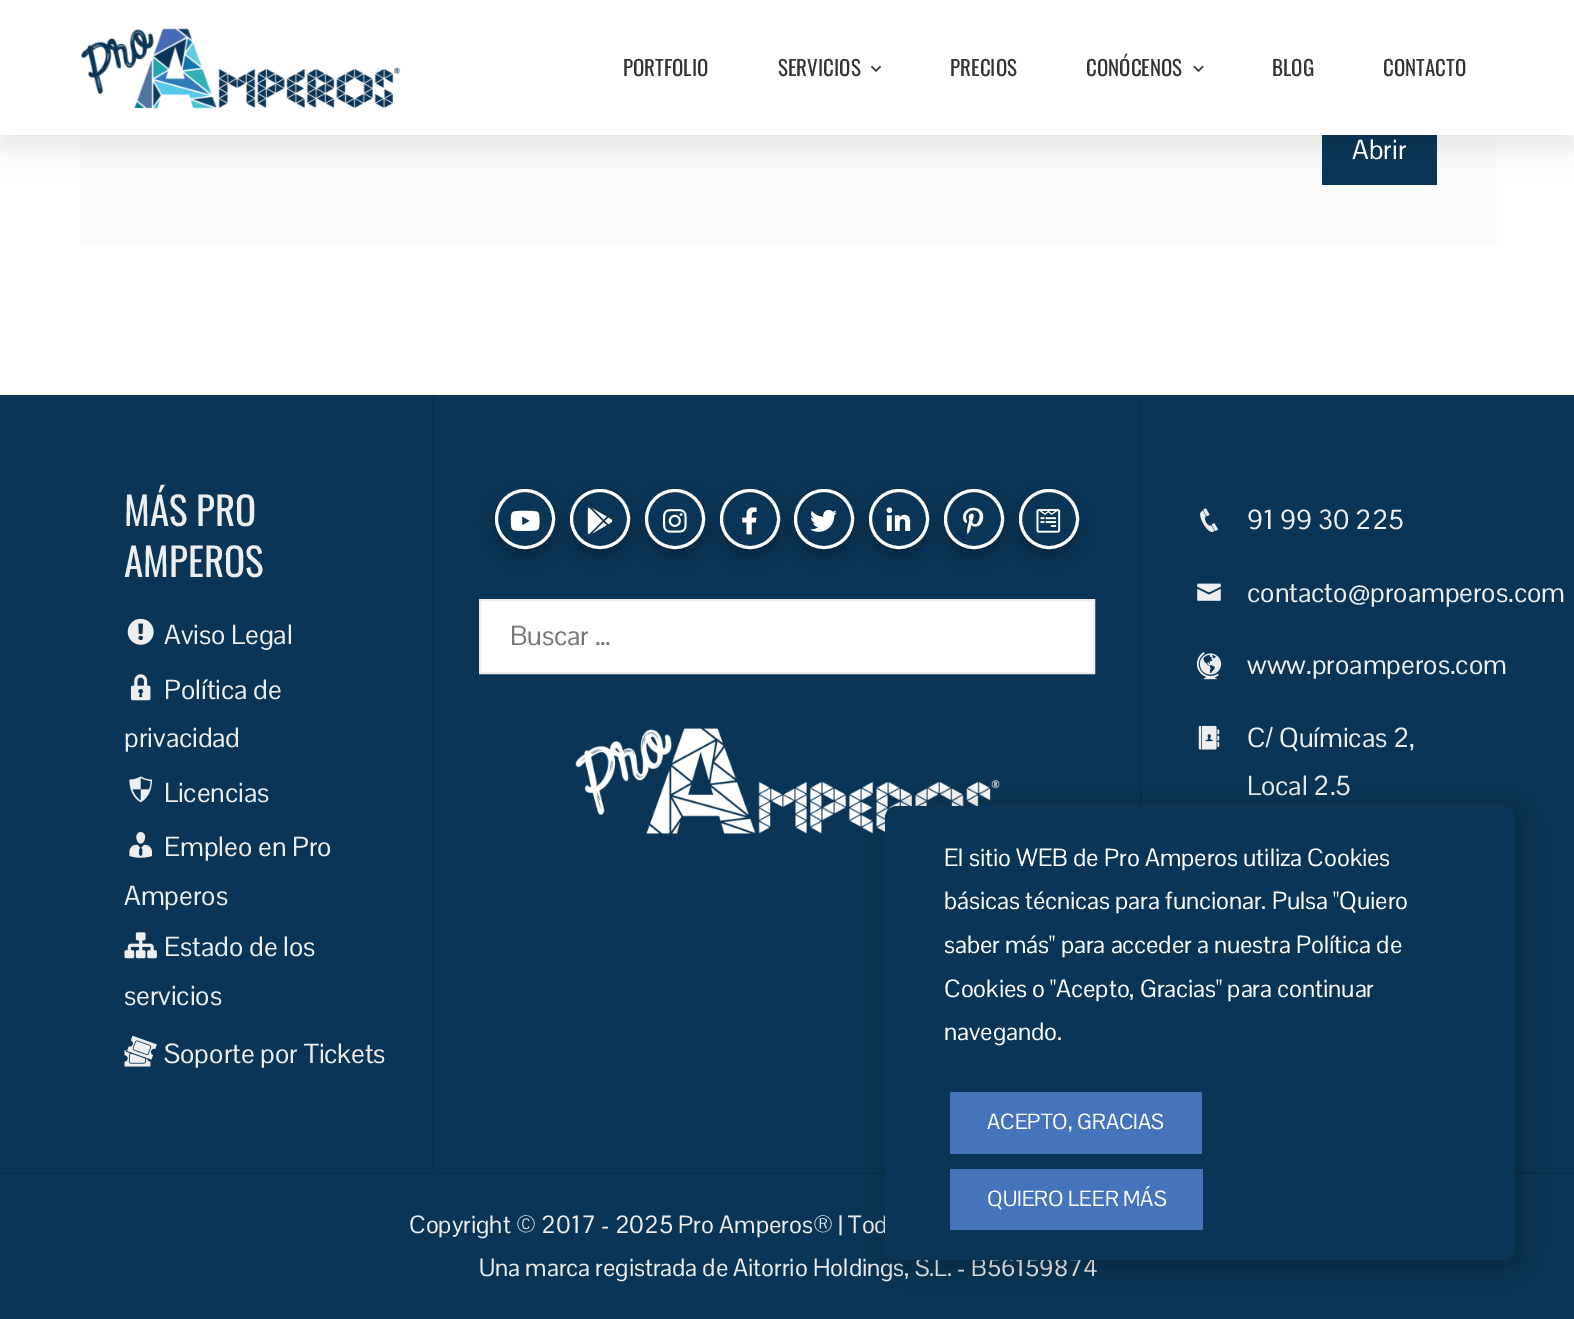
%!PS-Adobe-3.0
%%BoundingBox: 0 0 1574 1319
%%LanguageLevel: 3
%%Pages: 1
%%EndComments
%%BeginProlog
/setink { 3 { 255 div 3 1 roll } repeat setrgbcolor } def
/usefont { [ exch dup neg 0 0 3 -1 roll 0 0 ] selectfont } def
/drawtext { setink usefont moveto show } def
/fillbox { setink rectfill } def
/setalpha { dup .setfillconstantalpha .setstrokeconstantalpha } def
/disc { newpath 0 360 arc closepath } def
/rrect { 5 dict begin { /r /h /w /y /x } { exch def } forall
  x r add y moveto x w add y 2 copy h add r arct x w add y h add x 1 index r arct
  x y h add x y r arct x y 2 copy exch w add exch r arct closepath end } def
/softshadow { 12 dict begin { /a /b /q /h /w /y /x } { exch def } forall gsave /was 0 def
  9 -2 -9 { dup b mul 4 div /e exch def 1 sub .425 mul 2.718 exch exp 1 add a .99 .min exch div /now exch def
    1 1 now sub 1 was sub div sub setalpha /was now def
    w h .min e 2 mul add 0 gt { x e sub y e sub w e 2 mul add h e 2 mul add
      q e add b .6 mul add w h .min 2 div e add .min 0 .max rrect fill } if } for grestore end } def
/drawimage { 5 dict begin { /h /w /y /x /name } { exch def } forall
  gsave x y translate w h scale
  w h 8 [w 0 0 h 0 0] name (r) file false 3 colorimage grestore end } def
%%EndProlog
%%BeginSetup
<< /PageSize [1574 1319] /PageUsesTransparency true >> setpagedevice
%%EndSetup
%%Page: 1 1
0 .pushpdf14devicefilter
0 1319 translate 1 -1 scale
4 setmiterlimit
0 0 1574 1319 255 255 255 fillbox
80 135 1417 110 251 251 251 fillbox
1322 135 115 50 10 53 86 fillbox
0 0 0 setink
0 12 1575 135 0 15 0.1 softshadow
0 0 1574 135 255 255 255 fillbox
(assets/img1.rgb) 80 28 321 81 drawimage
(PORTFOLIO) 623 76 /Oswald-Regular 21 51 51 51 drawtext
(SERVICIOS) 778 76 /Oswald-Regular 21 51 51 51 drawtext
(assets/img2.rgb) 870 65 12 7 drawimage
(PRECIOS) 950 76 /Oswald-Regular 21 51 51 51 drawtext
(CONÓCENOS) 1086 76 /Oswald-Regular 21 51 51 51 drawtext
(assets/img3.rgb) 1193 65 11 7 drawimage
(BLOG) 1272 76 /Oswald-Regular 21 51 51 51 drawtext
(CONTACTO) 1383 76 /Oswald-Regular 21 51 51 51 drawtext
(Abrir) 1352 159 /PontanoSans-Regular 27 255 255 255 drawtext
0 395 1574 924 10 53 86 fillbox
0 1172 1574 2 9 48 77 fillbox
432 395 2 777 9 48 77 fillbox
(MÁS PRO) 124 526 /Oswald-Regular 39 238 238 238 drawtext
(AMPEROS) 124 577 /Oswald-Regular 39 238 238 238 drawtext
(assets/img4.rgb) 127 618 27 27 drawimage
(Aviso Legal) 164 644 /PontanoSans-Regular 27 238 238 238 drawtext
(assets/img5.rgb) 130 674 21 27 drawimage
(Política de) 164 699 /PontanoSans-Regular 27 238 238 238 drawtext
(privacidad) 124 747 /PontanoSans-Regular 27 238 238 238 drawtext
(assets/img6.rgb) 129 776 23 27 drawimage
(Licencias) 164 802 /PontanoSans-Regular 27 238 238 238 drawtext
(assets/img7.rgb) 129 832 24 26 drawimage
(Empleo en Pro) 164 856 /PontanoSans-Regular 27 238 238 238 drawtext
(Amperos) 124 905 /PontanoSans-Regular 27 238 238 238 drawtext
(assets/img8.rgb) 124 932 33 27 drawimage
(Estado de los) 164 956 /PontanoSans-Regular 27 238 238 238 drawtext
(servicios) 124 1005 /PontanoSans-Regular 27 238 238 238 drawtext
(assets/img9.rgb) 124 1035 33 32 drawimage
(Soporte por Tickets) 164 1063 /PontanoSans-Regular 27 238 238 238 drawtext
1140 395 2 411 9 48 77 fillbox
gsave
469 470 moveto 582 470 lineto 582 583 lineto 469 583 lineto closepath 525 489 moveto 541.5 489 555 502.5 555 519 curveto 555 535.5 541.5 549 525 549 curveto 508.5 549 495 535.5 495 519 curveto 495 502.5 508.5 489 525 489 curveto closepath eoclip newpath
0 0 0 setink
503 504 45 45 22.5 11 0.5 softshadow
grestore
255 255 255 setink
3 setlinewidth
525 519 28.5 disc stroke
(assets/img10.rgb) 510 510 30 21 drawimage
gsave
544 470 moveto 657 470 lineto 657 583 lineto 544 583 lineto closepath 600 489 moveto 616.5 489 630 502.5 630 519 curveto 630 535.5 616.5 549 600 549 curveto 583.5 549 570 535.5 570 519 curveto 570 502.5 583.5 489 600 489 curveto closepath eoclip newpath
0 0 0 setink
578 504 45 45 22.5 11 0.5 softshadow
grestore
600 519 28.5 disc stroke
(assets/img11.rgb) 587 507 26 28 drawimage
gsave
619 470 moveto 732 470 lineto 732 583 lineto 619 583 lineto closepath 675 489 moveto 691.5 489 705 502.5 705 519 curveto 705 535.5 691.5 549 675 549 curveto 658.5 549 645 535.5 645 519 curveto 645 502.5 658.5 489 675 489 curveto closepath eoclip newpath
0 0 0 setink
653 504 45 45 22.5 11 0.5 softshadow
grestore
675 519 28.5 disc stroke
(assets/img12.rgb) 663 509 24 24 drawimage
gsave
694 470 moveto 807 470 lineto 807 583 lineto 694 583 lineto closepath 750 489 moveto 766.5 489 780 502.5 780 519 curveto 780 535.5 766.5 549 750 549 curveto 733.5 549 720 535.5 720 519 curveto 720 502.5 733.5 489 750 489 curveto closepath eoclip newpath
0 0 0 setink
728 504 45 45 22.5 11 0.5 softshadow
grestore
750 519 28.5 disc stroke
(assets/img13.rgb) 742 507 15 28 drawimage
gsave
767 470 moveto 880 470 lineto 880 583 lineto 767 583 lineto closepath 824 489 moveto 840.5 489 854 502.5 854 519 curveto 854 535.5 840.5 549 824 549 curveto 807.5 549 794 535.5 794 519 curveto 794 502.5 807.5 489 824 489 curveto closepath eoclip newpath
0 0 0 setink
801 504 45 45 22.5 11 0.5 softshadow
grestore
824 519 28.5 disc stroke
(assets/img14.rgb) 810 509 27 23 drawimage
gsave
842 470 moveto 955 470 lineto 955 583 lineto 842 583 lineto closepath 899 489 moveto 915.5 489 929 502.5 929 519 curveto 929 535.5 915.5 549 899 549 curveto 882.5 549 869 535.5 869 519 curveto 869 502.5 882.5 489 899 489 curveto closepath eoclip newpath
0 0 0 setink
876 504 45 45 22.5 11 0.5 softshadow
grestore
899 519 28.5 disc stroke
(assets/img15.rgb) 886 507 25 24 drawimage
gsave
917 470 moveto 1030 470 lineto 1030 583 lineto 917 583 lineto closepath 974 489 moveto 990.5 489 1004 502.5 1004 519 curveto 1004 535.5 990.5 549 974 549 curveto 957.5 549 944 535.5 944 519 curveto 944 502.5 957.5 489 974 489 curveto closepath eoclip newpath
0 0 0 setink
951 504 45 45 22.5 11 0.5 softshadow
grestore
974 519 28.5 disc stroke
(assets/img16.rgb) 963 507 21 27 drawimage
gsave
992 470 moveto 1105 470 lineto 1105 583 lineto 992 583 lineto closepath 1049 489 moveto 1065.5 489 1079 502.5 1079 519 curveto 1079 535.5 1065.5 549 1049 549 curveto 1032.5 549 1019 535.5 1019 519 curveto 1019 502.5 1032.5 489 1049 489 curveto closepath eoclip newpath
0 0 0 setink
1026 504 45 45 22.5 11 0.5 softshadow
grestore
1049 519 28.5 disc stroke
(assets/img17.rgb) 1036 509 25 24 drawimage
480 600 moveto 1094 600 lineto 1094 673 lineto 480 673 lineto closepath gsave fill grestore
238 238 238 setink
2 setlinewidth
stroke
(Buscar …) 510 645 /PontanoSans-Regular 27 117 117 117 drawtext
(assets/img18.rgb) 575 728 425 106 drawimage
(assets/img19.rgb) 1200 508 18 24 drawimage
(91 99 30 225) 1247 529 /PontanoSans-Regular 27 238 238 238 drawtext
(assets/img20.rgb) 1197 583 24 18 drawimage
(contacto@proamperos.com) 1247 602 /PontanoSans-Regular 27 238 238 238 drawtext
(assets/img21.rgb) 1196 652 26 28 drawimage
(www.proamperos.com) 1247 674 /PontanoSans-Regular 27 238 238 238 drawtext
(assets/img22.rgb) 1198 725 22 25 drawimage
(C/ Químicas 2,) 1247 747 /PontanoSans-Regular 27 238 238 238 drawtext
(Local 2.5) 1247 795 /PontanoSans-Regular 27 238 238 238 drawtext
(Copyright © 2017 - 2025 Pro Amperos® | Tod) 409 1233 /PontanoSans-Regular 24.3 238 238 238 drawtext
(Una marca registrada de Aitorrio Holdings, S.L. - B56159874) 479 1276 /PontanoSans-Regular 24.3 238 238 238 drawtext
0 0 0 setink
890 810 630 455 12 15 0.3 softshadow
10 53 86 setink
885 806 630 454 12 rrect fill
(El sitio WEB de Pro Amperos utiliza Cookies) 944 866 /PontanoSans-Regular 24.3 255 255 255 drawtext
(básicas técnicas para funcionar. Pulsa "Quiero) 944 909 /PontanoSans-Regular 24.3 255 255 255 drawtext
(saber más" para acceder a nuestra Política de) 944 953 /PontanoSans-Regular 24.3 255 255 255 drawtext
(Cookies o "Acepto, Gracias" para continuar) 944 997 /PontanoSans-Regular 24.3 255 255 255 drawtext
(navegando.) 944 1040 /PontanoSans-Regular 24.3 255 255 255 drawtext
69 116 186 setink
950 1092 252 62 1.5 rrect fill
(ACEPTO, GRACIAS) 987 1129 /PontanoSans-Regular 21.4 255 255 255 drawtext
69 116 186 setink
950 1169 253 61 1.5 rrect fill
(QUIERO LEER MÁS) 987 1206 /PontanoSans-Regular 21.4 255 255 255 drawtext
.poppdf14devicefilter showpage
%%EOF
